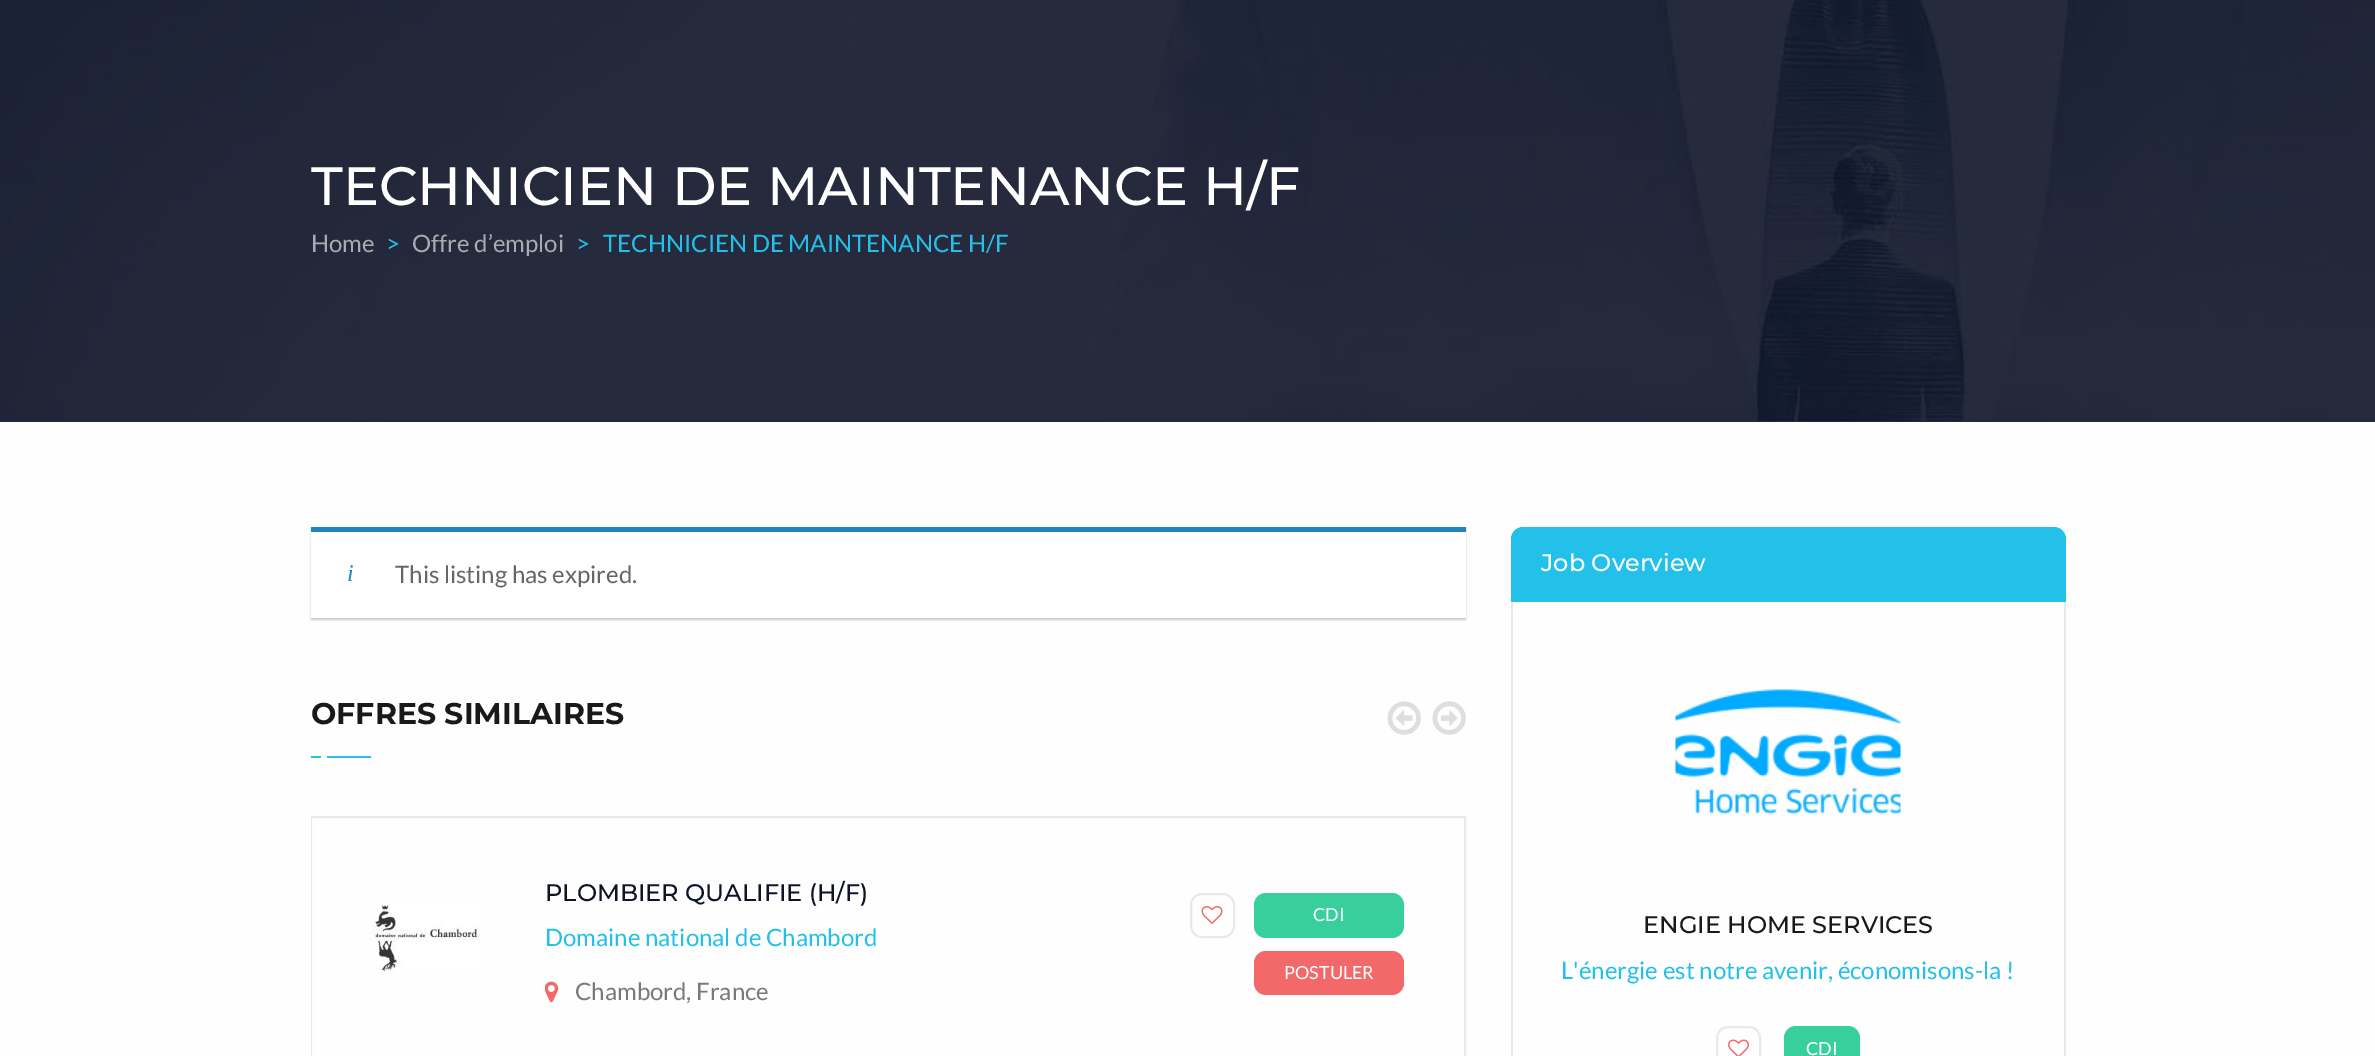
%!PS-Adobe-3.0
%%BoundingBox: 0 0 2375 1056
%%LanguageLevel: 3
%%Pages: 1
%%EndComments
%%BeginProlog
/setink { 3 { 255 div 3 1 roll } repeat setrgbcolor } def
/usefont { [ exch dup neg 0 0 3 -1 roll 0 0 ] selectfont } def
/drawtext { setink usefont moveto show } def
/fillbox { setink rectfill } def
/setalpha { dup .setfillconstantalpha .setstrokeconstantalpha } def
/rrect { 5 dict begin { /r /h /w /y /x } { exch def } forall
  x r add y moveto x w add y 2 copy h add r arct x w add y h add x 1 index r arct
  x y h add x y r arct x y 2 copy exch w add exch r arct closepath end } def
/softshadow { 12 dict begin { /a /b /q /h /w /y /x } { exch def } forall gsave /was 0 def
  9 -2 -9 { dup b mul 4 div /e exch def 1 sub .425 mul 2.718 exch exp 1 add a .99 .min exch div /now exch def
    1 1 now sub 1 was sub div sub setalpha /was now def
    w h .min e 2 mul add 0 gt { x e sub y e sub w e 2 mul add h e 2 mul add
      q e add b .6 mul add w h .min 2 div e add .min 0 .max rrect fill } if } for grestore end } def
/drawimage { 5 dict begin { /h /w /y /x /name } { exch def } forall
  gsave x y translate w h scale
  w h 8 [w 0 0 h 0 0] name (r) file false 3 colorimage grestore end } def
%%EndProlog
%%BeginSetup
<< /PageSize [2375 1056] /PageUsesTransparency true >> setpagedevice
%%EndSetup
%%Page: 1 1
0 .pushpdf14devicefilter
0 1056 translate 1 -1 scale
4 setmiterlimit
0 0 2375 1056 254 254 254 fillbox
0 421 2375 1 35 41 58 fillbox
(assets/img1.rgb) 0 0 2375 421 drawimage
(TECHNICIEN DE MAINTENANCE H/F) 311 205 /Montserrat-Medium 54 255 255 255 drawtext
(Home) 311 252 /Lato-Regular 24 170 171 176 drawtext
(>) 386 252 /Lato-Regular 24 35 192 233 drawtext
(Offre d’emploi) 412 252 /Lato-Regular 24 170 171 176 drawtext
(>) 576 252 /Lato-Regular 24 35 192 233 drawtext
(TECHNICIEN DE MAINTENANCE H/F) 603 252 /Lato-Regular 24 35 192 233 drawtext
0 0 0 setink
311 528 1155 92 0 1 0.2 softshadow
311 532 1155 86 255 255 255 fillbox
311 527 1155 5 30 133 190 fillbox
(i) 347 581 /LiberationSerif-Italic 24 30 133 190 drawtext
(This listing has expired.) 395 583 /Lato-Regular 24 102 102 102 drawtext
(OFFRES SIMILAIRES) 311 724 /Montserrat-Bold 30 25 25 25 drawtext
311 756 10 2 35 192 233 fillbox
327 756 44 2 35 192 233 fillbox
(assets/img2.rgb) 1387 701 34 34 drawimage
(assets/img3.rgb) 1432 701 34 34 drawimage
233 233 233 setink
2 setlinewidth
312 817 1153 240 rectstroke
312 818 1 238 255 255 255 fillbox
(assets/img4.rgb) 372 903 108 69 drawimage
(PLOMBIER QUALIFIE \(H/F\)) 545 901 /Montserrat-Medium 24 14 20 39 drawtext
(Domaine national de Chambord) 545 946 /Lato-Regular 24 35 192 233 drawtext
(assets/img5.rgb) 545 981 14 22 drawimage
(Chambord, France) 575 1000 /Lato-Regular 24 121 121 121 drawtext
233 233 233 setink
1191 894 43 43 11 rrect stroke
(assets/img6.rgb) 1201 906 22 18 drawimage
55 208 156 setink
1254 893 150 45 12 rrect fill
(CDI) 1313 921 /Lato-Regular 18 255 255 255 drawtext
243 105 105 setink
1254 951 150 44 12 rrect fill
(POSTULER) 1284 979 /Lato-Regular 18 255 255 255 drawtext
35 192 233 setink
1523 527 moveto 2054 527 lineto 2060.5 527 2066 532.5 2066 539 curveto 2066 602 lineto 1511 602 lineto 1511 539 lineto 1511 532.5 1516.5 527 1523 527 curveto closepath fill
(Job Overview) 1541 571 /Montserrat-Medium 24 255 255 255 drawtext
2064 602 2 454 233 233 233 fillbox
1511 602 2 454 233 233 233 fillbox
(assets/img7.rgb) 1675 689 226 126 drawimage
(ENGIE HOME SERVICES) 1643 933 /Montserrat-Medium 24 25 25 25 drawtext
(L'énergie est notre avenir, économisons-la !) 1561 979 /Lato-Regular 24 35 192 233 drawtext
233 233 233 setink
1717 1027 43 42 11 rrect stroke
(assets/img8.rgb) 1728 1039 21 17 drawimage
55 208 156 setink
1784 1026 76 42 12 rrect fill
(CDI) 1806 1055 /Lato-Regular 18 255 255 255 drawtext
.poppdf14devicefilter showpage
%%EOF
